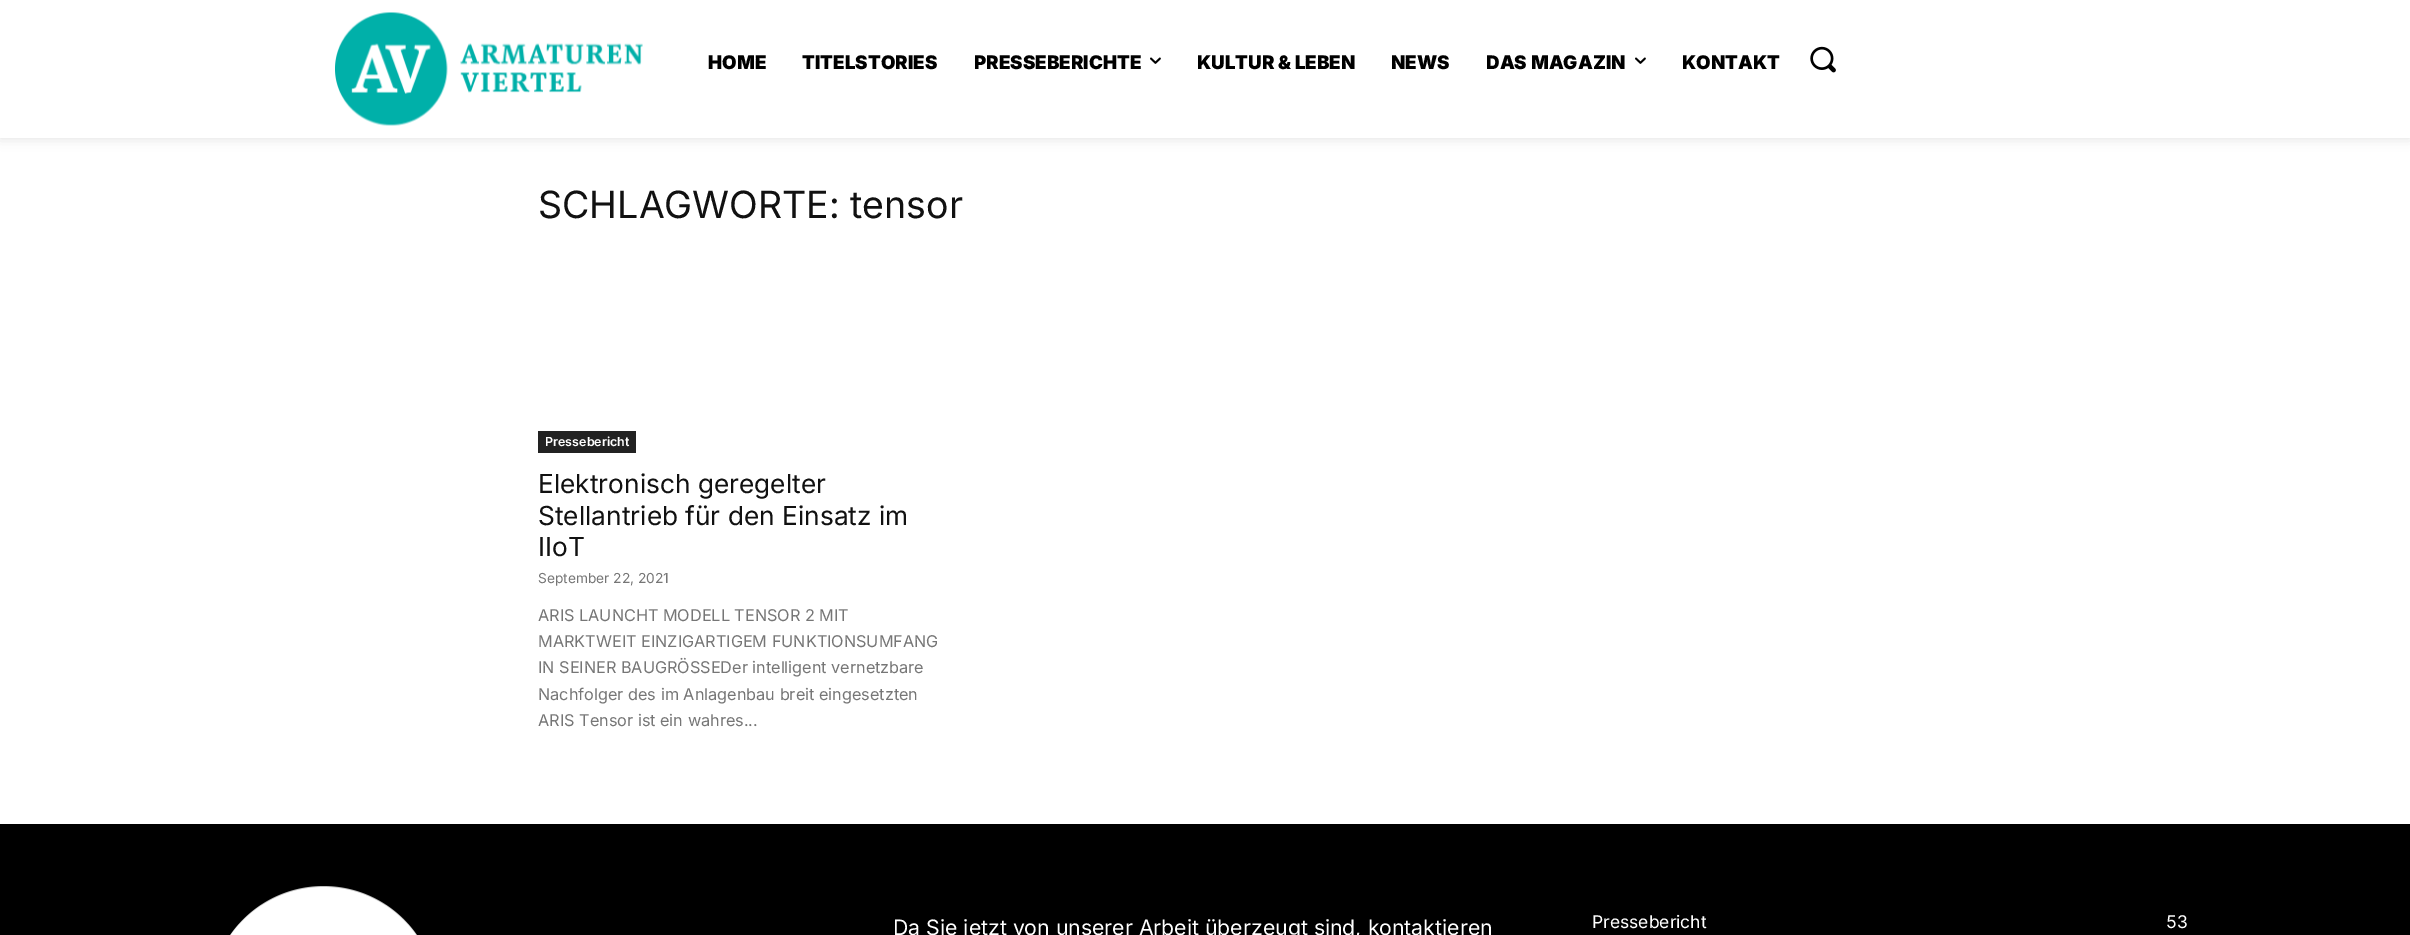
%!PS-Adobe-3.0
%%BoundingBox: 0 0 2410 935
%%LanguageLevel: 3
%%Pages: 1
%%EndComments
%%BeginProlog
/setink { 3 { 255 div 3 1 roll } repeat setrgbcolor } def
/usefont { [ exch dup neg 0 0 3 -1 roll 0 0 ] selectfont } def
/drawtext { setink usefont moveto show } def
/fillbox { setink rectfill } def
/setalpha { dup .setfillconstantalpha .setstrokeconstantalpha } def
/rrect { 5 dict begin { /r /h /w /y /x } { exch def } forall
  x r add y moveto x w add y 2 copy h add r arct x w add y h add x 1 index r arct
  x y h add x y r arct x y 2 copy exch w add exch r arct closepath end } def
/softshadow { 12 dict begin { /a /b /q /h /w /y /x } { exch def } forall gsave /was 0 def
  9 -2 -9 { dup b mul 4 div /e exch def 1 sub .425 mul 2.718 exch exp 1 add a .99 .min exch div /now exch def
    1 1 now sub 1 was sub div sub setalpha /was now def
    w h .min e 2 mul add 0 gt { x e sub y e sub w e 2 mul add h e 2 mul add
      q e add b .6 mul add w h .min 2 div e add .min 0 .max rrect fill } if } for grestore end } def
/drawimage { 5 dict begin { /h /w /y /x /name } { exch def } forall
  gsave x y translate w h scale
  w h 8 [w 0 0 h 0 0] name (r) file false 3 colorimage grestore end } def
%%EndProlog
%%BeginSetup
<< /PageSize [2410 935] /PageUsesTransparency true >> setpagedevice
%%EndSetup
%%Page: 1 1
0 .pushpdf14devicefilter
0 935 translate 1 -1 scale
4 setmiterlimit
0 0 2410 935 255 255 255 fillbox
(assets/img1.rgb) 335 12 308 114 drawimage
gsave
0 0 moveto 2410 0 lineto 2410 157 lineto 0 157 lineto closepath 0 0 moveto 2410 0 lineto 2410 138 lineto 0 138 lineto closepath eoclip newpath
0 0 0 setink
0 0 2410 138 0 6 0.12 softshadow
grestore
(HOME) 708 69 /Inter-Black 18.75 0 0 0 drawtext
(TITELSTORIES) 802 69 /Inter-Black 18.75 0 0 0 drawtext
(PRESSEBERICHTE) 974 69 /Inter-Black 18.75 0 0 0 drawtext
(assets/img2.rgb) 1150 57 11 7 drawimage
(KULTUR & LEBEN) 1197 69 /Inter-Black 18.75 0 0 0 drawtext
(NEWS) 1391 69 /Inter-Black 18.75 0 0 0 drawtext
(DAS MAGAZIN) 1486 69 /Inter-Black 18.75 0 0 0 drawtext
(assets/img2.rgb) 1635 57 11 7 drawimage
(KONTAKT) 1682 69 /Inter-Black 18.75 0 0 0 drawtext
(assets/img3.rgb) 1810 46 26 27 drawimage
(SCHLAGWORTE: tensor) 538 218 /Inter-Regular 37.5 17 17 17 drawtext
538 431 98 22 34 34 34 fillbox
(Pressebericht) 545 446 /Inter-SemiBold 12.5 255 255 255 drawtext
(Elektronisch geregelter) 538 493 /Inter-Regular 26.25 17 17 17 drawtext
(Stellantrieb für den Einsatz im) 538 525 /Inter-Regular 26.25 17 17 17 drawtext
(IIoT) 538 556 /Inter-Regular 26.25 17 17 17 drawtext
(September 22, 2021) 538 583 /Inter-Regular 13.75 118 118 118 drawtext
(ARIS LAUNCHT MODELL TENSOR 2 MIT) 538 621 /Inter-Regular 16.25 118 118 118 drawtext
(MARKTWEIT EINZIGARTIGEM FUNKTIONSUMFANG) 538 647 /Inter-Regular 16.25 118 118 118 drawtext
(IN SEINER BAUGRÖSSEDer intelligent vernetzbare) 538 673 /Inter-Regular 16.25 118 118 118 drawtext
(Nachfolger des im Anlagenbau breit eingesetzten) 538 700 /Inter-Regular 16.25 118 118 118 drawtext
(ARIS Tensor ist ein wahres...) 538 726 /Inter-Regular 16.25 118 118 118 drawtext
0 824 2410 111 0 0 0 fillbox
(assets/img4.rgb) 230 886 187 49 drawimage
(Da Sie jetzt von unserer Arbeit überzeugt sind, kontaktieren) 893 935 /Inter-Regular 21.25 255 255 255 drawtext
(Pressebericht) 1592 928 /Inter-Regular 17.5 255 255 255 drawtext
(53) 2166 928 /Inter-Regular 17.5 255 255 255 drawtext
.poppdf14devicefilter showpage
%%EOF
